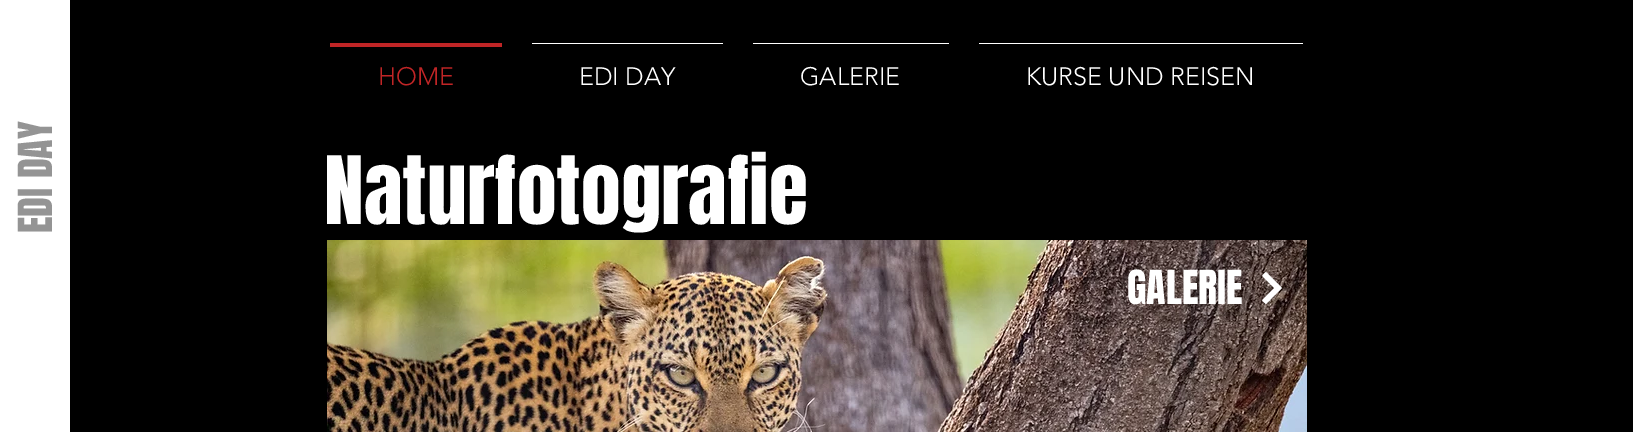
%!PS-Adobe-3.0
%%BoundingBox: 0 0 1633 432
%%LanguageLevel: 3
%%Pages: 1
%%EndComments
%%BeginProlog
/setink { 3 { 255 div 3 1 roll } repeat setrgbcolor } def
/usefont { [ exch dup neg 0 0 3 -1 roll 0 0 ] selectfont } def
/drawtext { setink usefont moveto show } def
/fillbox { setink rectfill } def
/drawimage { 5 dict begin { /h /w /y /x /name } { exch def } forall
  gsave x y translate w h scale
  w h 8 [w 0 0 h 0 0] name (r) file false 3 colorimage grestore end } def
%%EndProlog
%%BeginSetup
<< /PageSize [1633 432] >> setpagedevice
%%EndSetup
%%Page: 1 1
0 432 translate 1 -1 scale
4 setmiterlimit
0 0 1633 432 0 0 0 fillbox
0 0 70 432 255 255 255 fillbox
330 43 172 4 192 37 38 fillbox
(HOME) 378 85 /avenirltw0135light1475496-Light 25 192 37 38 drawtext
532 43 191 1 255 255 255 fillbox
(EDI DAY) 579 85 /avenirltw0135light1475496-Light 25 255 255 255 drawtext
753 43 196 1 255 255 255 fillbox
(GALERIE) 800 85 /avenirltw0135light1475496-Light 25 255 255 255 drawtext
979 43 324 1 255 255 255 fillbox
(KURSE UND REISEN) 1026 85 /avenirltw0135light1475496-Light 25 255 255 255 drawtext
/Anton-Regular 40 usefont
148 148 148 setink
gsave 52 233 translate -90 rotate 0 0 moveto (EDI DAY) show grestore
(Naturfotografie) 324 224 /Anton-Regular 80 255 255 255 drawtext
(assets/img1.rgb) 327 240 980 192 drawimage
(GALERIE) 1127 304 /Anton-Regular 40 255 255 255 drawtext
(assets/img2.rgb) 1262 272 20 32 drawimage
showpage
%%EOF
